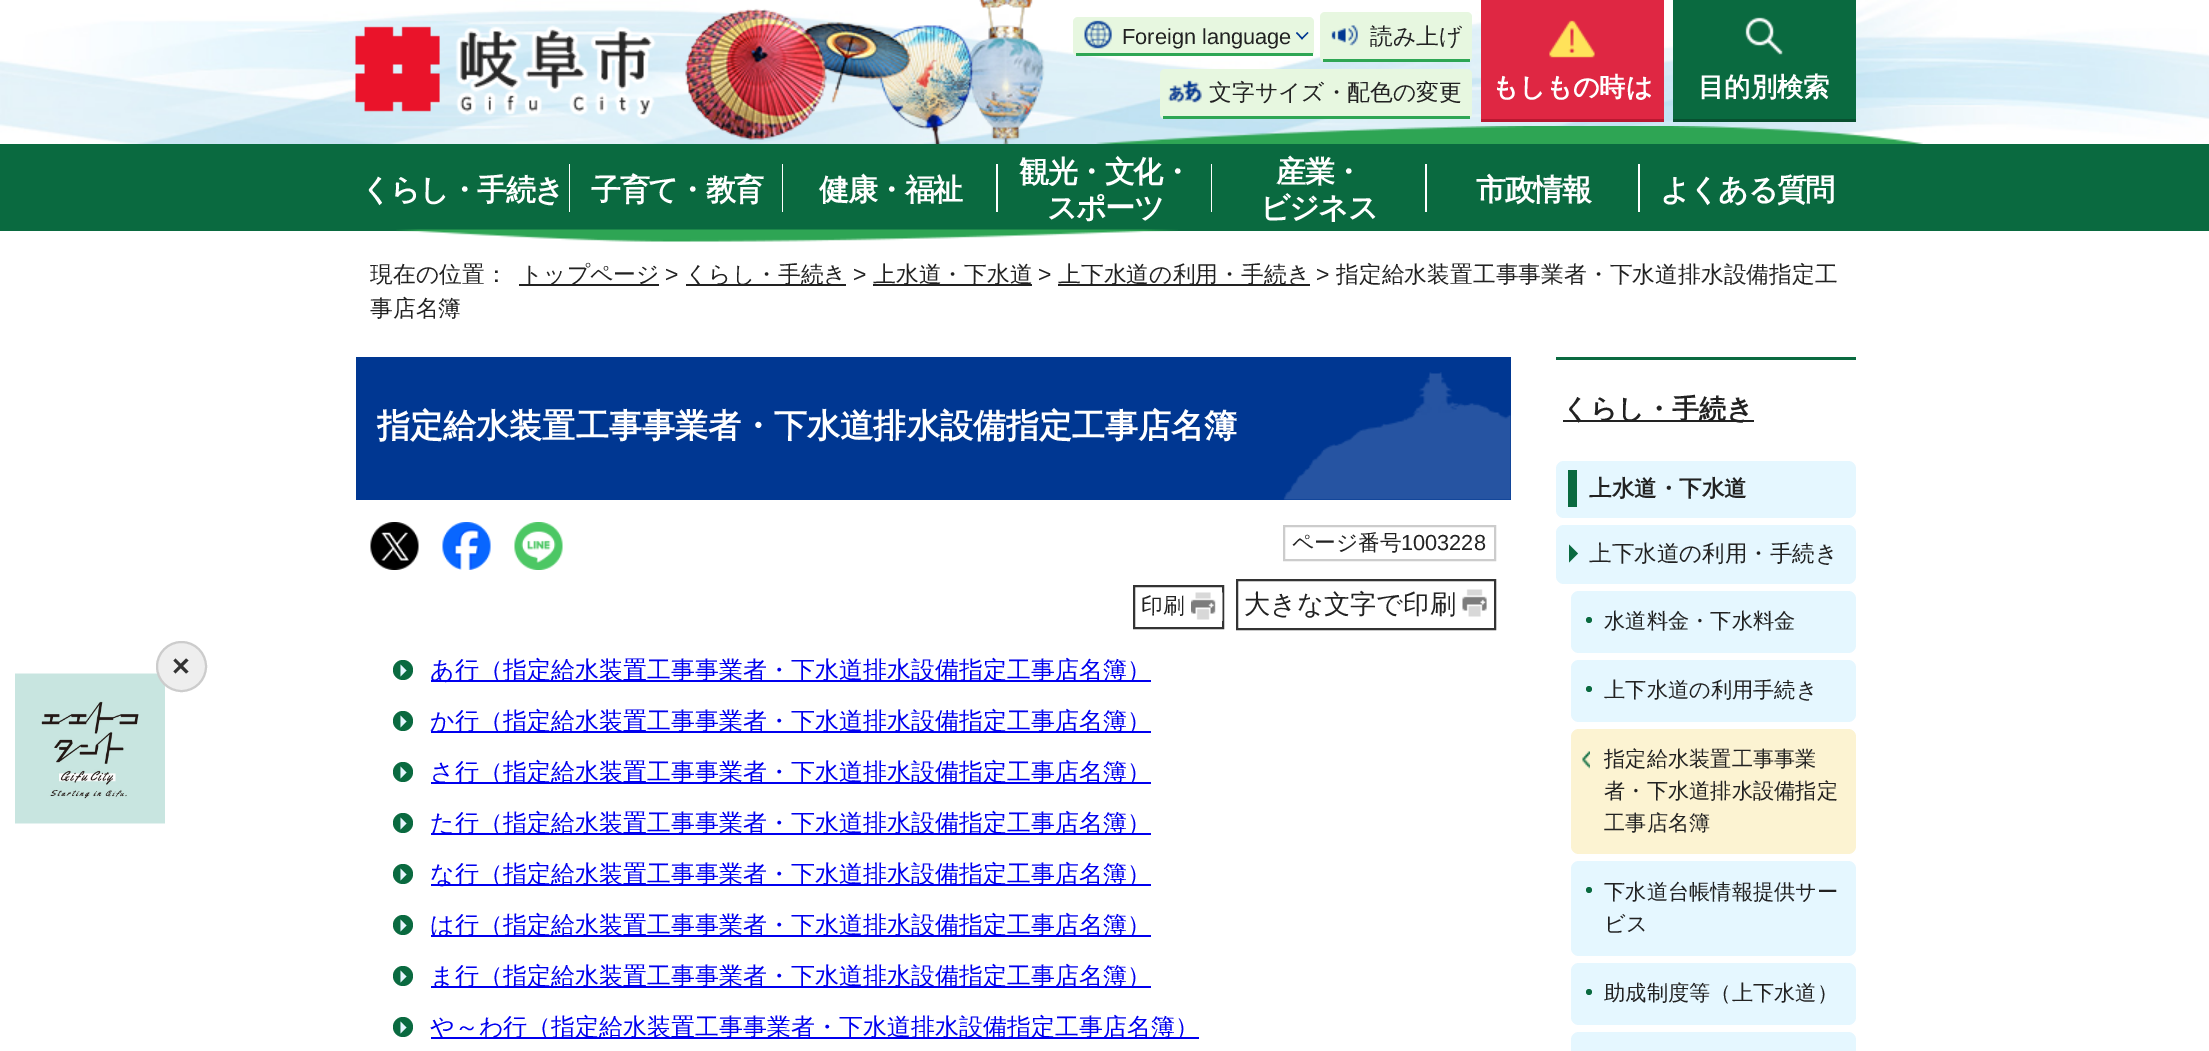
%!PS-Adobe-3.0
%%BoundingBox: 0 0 2209 1051
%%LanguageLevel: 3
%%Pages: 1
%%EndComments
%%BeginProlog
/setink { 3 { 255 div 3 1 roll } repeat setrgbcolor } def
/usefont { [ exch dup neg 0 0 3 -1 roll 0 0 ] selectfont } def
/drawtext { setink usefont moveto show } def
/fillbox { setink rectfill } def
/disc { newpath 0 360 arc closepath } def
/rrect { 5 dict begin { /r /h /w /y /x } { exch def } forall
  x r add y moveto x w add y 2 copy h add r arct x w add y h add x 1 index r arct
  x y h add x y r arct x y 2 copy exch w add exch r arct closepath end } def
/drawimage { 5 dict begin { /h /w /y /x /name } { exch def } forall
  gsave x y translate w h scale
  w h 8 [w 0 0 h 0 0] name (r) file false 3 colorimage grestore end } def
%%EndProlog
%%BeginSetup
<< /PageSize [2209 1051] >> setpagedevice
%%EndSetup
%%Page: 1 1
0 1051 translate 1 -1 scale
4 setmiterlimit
0 0 2209 1051 255 255 255 fillbox
(assets/img1.rgb) 0 0 2209 144 drawimage
(assets/img2.rgb) 685 0 360 144 drawimage
(assets/img3.rgb) 355 25 301 94 drawimage
231 247 224 setink
1073 17 241 39 5 rrect fill
(assets/img4.rgb) 1084 20 28 29 drawimage
1076 53 237 3 46 166 84 fillbox
(Foreign language) 1122 44 /LiberationSans-Regular 21.75 34 34 34 drawtext
0 55 146 setink
1308.5 33 moveto 1302 39.5 lineto 1301 38.5 lineto 1307.5 32 lineto closepath fill
1303 38.5 moveto 1302 39.5 lineto 1296 33 lineto 1297 32 lineto closepath fill
231 247 224 setink
1320 12 152 50 5 rrect fill
(assets/img5.rgb) 1331 25 27 21 drawimage
1323 59 147 3 46 166 84 fillbox
(読み上げ) 1370 44 /WenQuanYiZenHei-Medium 22.8 34 34 34 drawtext
231 247 224 setink
1160 69 312 50 5 rrect fill
(assets/img6.rgb) 1168 80 34 23 drawimage
1163 116 307 3 46 166 84 fillbox
(文字サイズ・配色の変更) 1209 100 /WenQuanYiZenHei-Medium 22.8 34 34 34 drawtext
1481 0 183 119 223 39 67 fillbox
(assets/img7.rgb) 1549 20 46 38 drawimage
1481 119 183 3 184 25 49 fillbox
(もしもの時は) 1492 96 /WenQuanYiZenHei-Bold 26.25 255 255 255 drawtext
1673 0 183 119 10 106 64 fillbox
(assets/img8.rgb) 1745 17 38 38 drawimage
1673 119 183 3 8 80 48 fillbox
(目的別検索) 1698 96 /WenQuanYiZenHei-Bold 26.25 255 255 255 drawtext
0 144 2209 87 10 106 64 fillbox
(assets/img9.rgb) 1096 126 827 18 drawimage
/WenQuanYiZenHei-Bold 30 usefont
255 255 255 setink
361 200 moveto -1.5 0 (くらし・手続き) ashow
569 164 1 48 255 255 255 fillbox
591 200 moveto -1.5 0 (子育て・教育) ashow
782 164 1 48 255 255 255 fillbox
819 200 moveto -1.5 0 (健康・福祉) ashow
996 164 2 48 255 255 255 fillbox
1019 182 moveto -1.5 0 (観光・文化・) ashow
1211 164 1 48 255 255 255 fillbox
1047 218 moveto -1.5 0 (スポーツ) ashow
1276 182 moveto -1.5 0 (産業・) ashow
1425 164 2 48 255 255 255 fillbox
1260 218 moveto -1.5 0 (ビジネス) ashow
1476 200 moveto -1.5 0 (市政情報) ashow
1638 164 2 48 255 255 255 fillbox
1660 200 moveto -1.5 0 (よくある質問) ashow
(assets/img10.rgb) 396 229 782 13 drawimage
(現在の位置：) 370 282 /WenQuanYiZenHei-Medium 22.8 34 34 34 drawtext
519 284 140 2 34 34 34 fillbox
(トップページ) 520 282 /WenQuanYiZenHei-Medium 22.8 34 34 34 drawtext
(>) 665 282 /LiberationSans-Regular 22.8 34 34 34 drawtext
686 284 160 2 34 34 34 fillbox
(くらし・手続き) 685 282 /WenQuanYiZenHei-Medium 22.8 34 34 34 drawtext
(>) 853 282 /LiberationSans-Regular 22.8 34 34 34 drawtext
873 284 159 2 34 34 34 fillbox
(上水道・下水道) 873 282 /WenQuanYiZenHei-Medium 22.8 34 34 34 drawtext
(>) 1038 282 /LiberationSans-Regular 22.8 34 34 34 drawtext
1058 284 252 2 34 34 34 fillbox
(上下水道の利用・手続き) 1058 282 /WenQuanYiZenHei-Medium 22.8 34 34 34 drawtext
(>) 1316 282 /LiberationSans-Regular 22.8 34 34 34 drawtext
(指定給水装置工事事業者・下水道排水設備指定工) 1336 282 /WenQuanYiZenHei-Medium 22.8 34 34 34 drawtext
(事店名簿) 370 316 /WenQuanYiZenHei-Medium 22.8 34 34 34 drawtext
(assets/img11.rgb) 15 673 150 151 drawimage
238 238 238 setink
181.5 666.5 24.5 disc gsave fill grestore
204 204 204 setink
2 setlinewidth
stroke
51 51 51 setink
173.5 671.5 moveto 186 658.5 lineto 188.5 660.5 lineto 175.5 673.5 lineto closepath fill
175.5 658.5 moveto 188.5 671.5 lineto 186 673.5 lineto 173.5 660.5 lineto closepath fill
356 357 1155 143 0 55 146 fillbox
(assets/img12.rgb) 1283 372 228 128 drawimage
(指定給水装置工事事業者・下水道排水設備指定工事店名簿) 377 437 /WenQuanYiZenHei-Bold 33.1 255 255 255 drawtext
(assets/img13.rgb) 370 522 49 48 drawimage
(assets/img14.rgb) 442 522 49 48 drawimage
(assets/img15.rgb) 514 522 49 48 drawimage
204 204 204 setink
1284 526 211 34 rectstroke
(ページ番号) 1292 550 /WenQuanYiZenHei-Medium 21.75 34 34 34 drawtext
(1003228) 1401 550 /LiberationSans-Regular 21.75 34 34 34 drawtext
51 51 51 setink
1134 586 89 42 rectstroke
(assets/img16.rgb) 1191 592 32 29 drawimage
(印刷) 1141 613 /WenQuanYiZenHei-Medium 21.75 34 34 34 drawtext
51 51 51 setink
1237 580 258 49 rectstroke
(assets/img17.rgb) 1462 589 25 28 drawimage
(大きな文字で印刷) 1244 613 /WenQuanYiZenHei-Medium 26.25 34 34 34 drawtext
10 106 64 setink
403 670 10 disc fill
431 680 720 2 0 0 238 fillbox
(あ行（指定給水装置工事事業者・下水道排水設備指定工事店名簿）) 430 678 /WenQuanYiZenHei-Medium 24 0 0 238 drawtext
229 247 255 setink
400.5 676.5 moveto 400.5 664.5 lineto 406.5 670.5 lineto closepath fill
10 106 64 setink
403 721 10 disc fill
431 731 720 2 0 0 238 fillbox
(か行（指定給水装置工事事業者・下水道排水設備指定工事店名簿）) 430 729 /WenQuanYiZenHei-Medium 24 0 0 238 drawtext
229 247 255 setink
400.5 727.5 moveto 400.5 715.5 lineto 406.5 721.5 lineto closepath fill
10 106 64 setink
403 772 10 disc fill
431 782 720 2 0 0 238 fillbox
(さ行（指定給水装置工事事業者・下水道排水設備指定工事店名簿）) 430 780 /WenQuanYiZenHei-Medium 24 0 0 238 drawtext
229 247 255 setink
400.5 778.5 moveto 400.5 766.5 lineto 406.5 772.5 lineto closepath fill
10 106 64 setink
403 823 10 disc fill
431 833 720 2 0 0 238 fillbox
(た行（指定給水装置工事事業者・下水道排水設備指定工事店名簿）) 430 831 /WenQuanYiZenHei-Medium 24 0 0 238 drawtext
229 247 255 setink
400.5 829.5 moveto 400.5 817.5 lineto 406.5 823.5 lineto closepath fill
10 106 64 setink
403 874 10 disc fill
431 884 720 2 0 0 238 fillbox
(な行（指定給水装置工事事業者・下水道排水設備指定工事店名簿）) 430 882 /WenQuanYiZenHei-Medium 24 0 0 238 drawtext
229 247 255 setink
400.5 880.5 moveto 400.5 868.5 lineto 406.5 874.5 lineto closepath fill
10 106 64 setink
403 925 10 disc fill
431 935 720 2 0 0 238 fillbox
(は行（指定給水装置工事事業者・下水道排水設備指定工事店名簿）) 430 933 /WenQuanYiZenHei-Medium 24 0 0 238 drawtext
229 247 255 setink
400.5 931.5 moveto 400.5 919.5 lineto 406.5 925.5 lineto closepath fill
10 106 64 setink
403 976 10 disc fill
431 986 720 2 0 0 238 fillbox
(ま行（指定給水装置工事事業者・下水道排水設備指定工事店名簿）) 430 984 /WenQuanYiZenHei-Medium 24 0 0 238 drawtext
229 247 255 setink
400.5 982.5 moveto 400.5 970.5 lineto 406.5 976.5 lineto closepath fill
10 106 64 setink
403 1027 10 disc fill
431 1037 768 2 0 0 238 fillbox
(や～わ行（指定給水装置工事事業者・下水道排水設備指定工事店名簿）) 430 1035 /WenQuanYiZenHei-Medium 24 0 0 238 drawtext
229 247 255 setink
400.5 1033.5 moveto 400.5 1021.5 lineto 406.5 1027.5 lineto closepath fill
1556 357 300 3 10 106 64 fillbox
1563 420 191 2 34 34 34 fillbox
(くらし・手続き) 1562 418 /WenQuanYiZenHei-Bold 27 34 34 34 drawtext
229 247 255 setink
1556 461 300 57 8 rrect fill
1568 470 9 37 10 106 64 fillbox
(上水道・下水道) 1589 496 /WenQuanYiZenHei-Bold 22.5 34 34 34 drawtext
229 247 255 setink
1556 525 300 59 8 rrect fill
10 106 64 setink
1569 562.5 moveto 1569 544.5 lineto 1578 553.5 lineto closepath fill
(上下水道の利用・手続き) 1589 561 /WenQuanYiZenHei-Medium 22.5 34 34 34 drawtext
229 247 255 setink
1571 591 285 62 8 rrect fill
10 106 64 setink
1589 620 3 disc fill
(水道料金・下水料金) 1604 628 /WenQuanYiZenHei-Medium 21.25 34 34 34 drawtext
229 247 255 setink
1571 660 285 62 8 rrect fill
10 106 64 setink
1589 689 3 disc fill
(上下水道の利用手続き) 1604 697 /WenQuanYiZenHei-Medium 21.25 34 34 34 drawtext
252 243 210 setink
1571 729 285 125 8 rrect fill
(assets/img18.rgb) 1582 751 8 18 drawimage
(指定給水装置工事事業) 1604 766 /WenQuanYiZenHei-Medium 21.25 34 34 34 drawtext
(者・下水道排水設備指定) 1604 798 /WenQuanYiZenHei-Medium 21.25 34 34 34 drawtext
(工事店名簿) 1604 830 /WenQuanYiZenHei-Medium 21.25 34 34 34 drawtext
229 247 255 setink
1571 861 285 95 8 rrect fill
10 106 64 setink
1589 890 3 disc fill
(下水道台帳情報提供サー) 1604 899 /WenQuanYiZenHei-Medium 21.25 34 34 34 drawtext
(ビス) 1604 931 /WenQuanYiZenHei-Medium 21.25 34 34 34 drawtext
229 247 255 setink
1571 963 285 62 8 rrect fill
10 106 64 setink
1589 992 3 disc fill
(助成制度等（上下水道）) 1604 1000 /WenQuanYiZenHei-Medium 21.25 34 34 34 drawtext
229 247 255 setink
1571 1032 285 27 8 rrect fill
showpage
%%EOF
